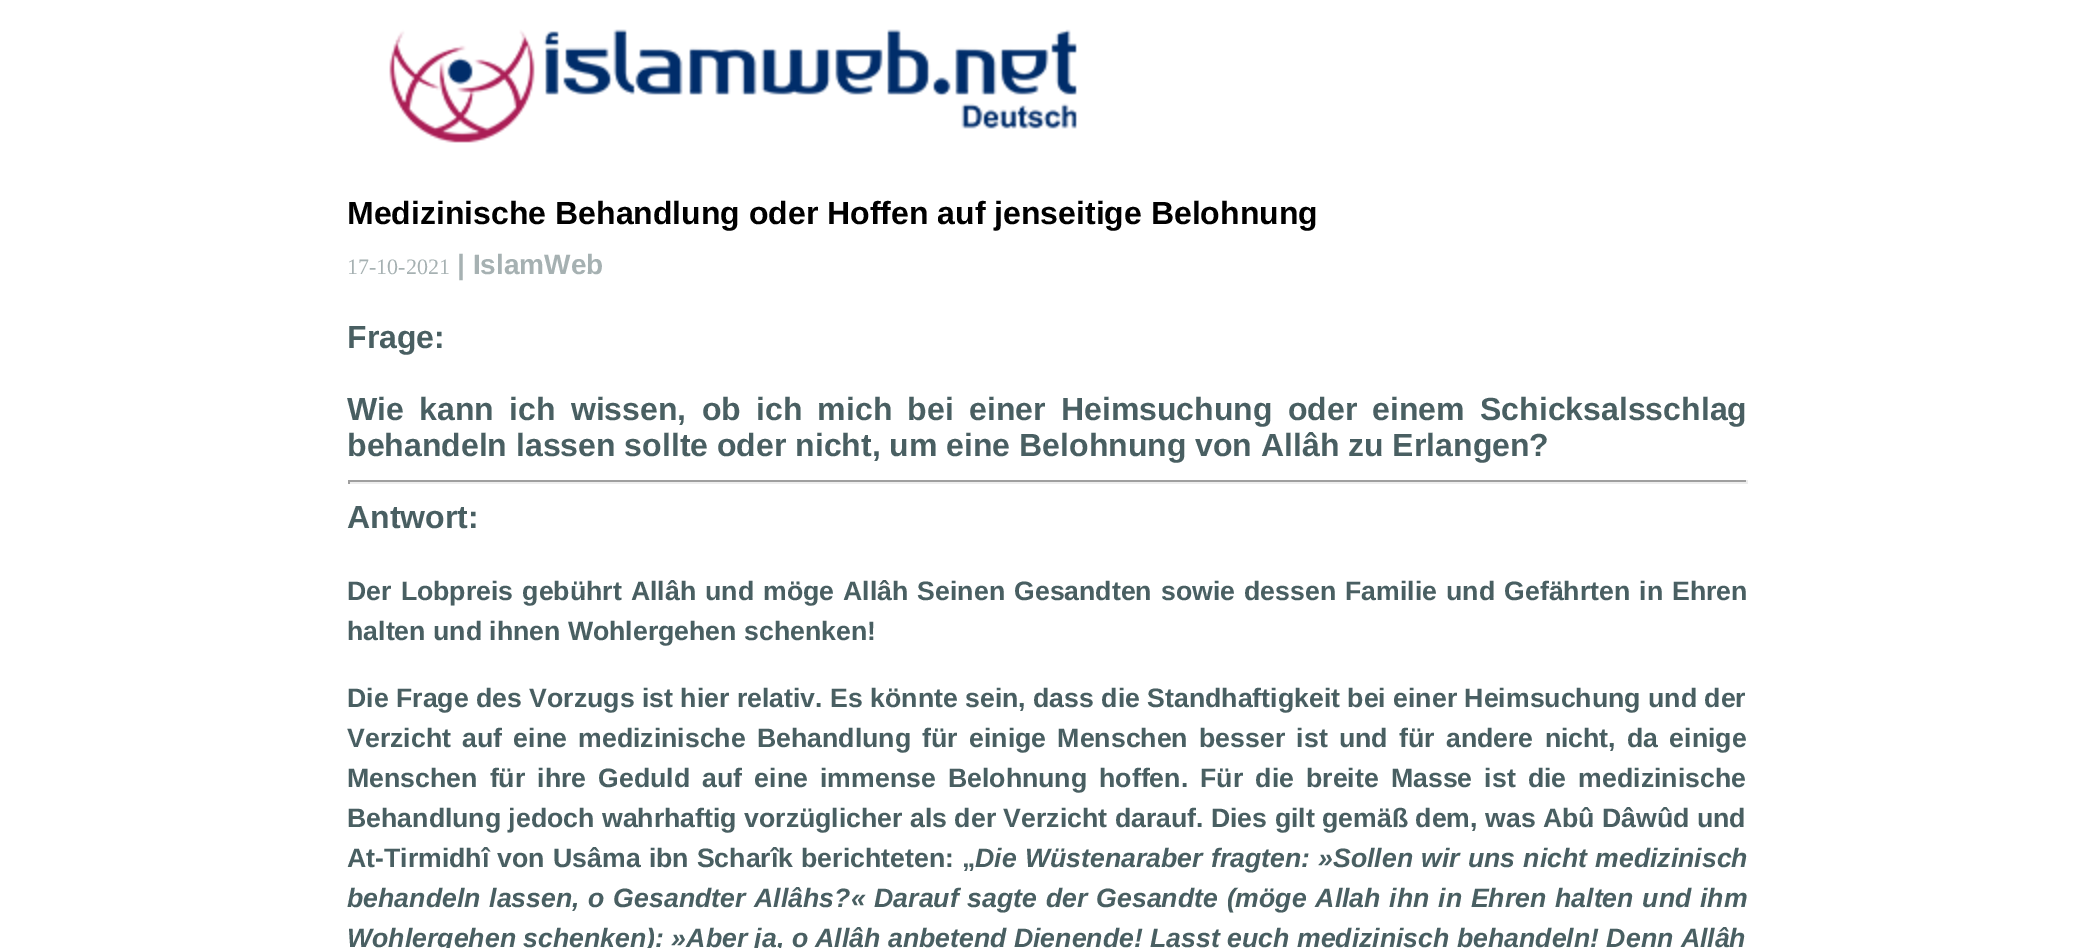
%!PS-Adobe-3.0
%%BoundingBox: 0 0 2094 948
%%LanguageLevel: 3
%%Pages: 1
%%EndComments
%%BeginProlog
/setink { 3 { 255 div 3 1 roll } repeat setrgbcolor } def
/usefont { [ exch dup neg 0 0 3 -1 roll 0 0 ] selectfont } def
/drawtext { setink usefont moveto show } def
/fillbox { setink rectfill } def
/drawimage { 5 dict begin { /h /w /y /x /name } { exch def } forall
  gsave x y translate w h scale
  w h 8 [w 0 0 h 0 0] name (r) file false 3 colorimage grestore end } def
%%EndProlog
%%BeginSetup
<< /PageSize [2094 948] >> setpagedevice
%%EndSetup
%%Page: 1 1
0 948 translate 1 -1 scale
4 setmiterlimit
0 0 2094 948 255 255 255 fillbox
(assets/img1.rgb) 389 29 688 114 drawimage
(Medizinische Behandlung oder Hoffen auf jenseitige Belohnung) 347 224 /LiberationSans-Bold 32 0 0 0 drawtext
(17-10-2021) 347 274 /LiberationSerif-Regular 22 166 177 178 drawtext
(| IslamWeb) 457 274 /LiberationSans-Bold 28 166 177 178 drawtext
(Frage:) 347 348 /LiberationSans-Bold 32 73 95 98 drawtext
347 420 moveto 6.4 0 32 (Wie kann ich wissen, ob ich mich bei einer Heimsuchung oder einem Schicksalsschlag) widthshow
(behandeln lassen sollte oder nicht, um eine Belohnung von Allâh zu Erlangen?) 347 456 /LiberationSans-Bold 32 73 95 98 drawtext
348 480 1400 2 159 159 159 fillbox
1746 480 2 4 238 238 238 fillbox
348 482 1400 2 238 238 238 fillbox
348 480 2 4 159 159 159 fillbox
(Antwort:) 347 528 /LiberationSans-Bold 32 73 95 98 drawtext
/LiberationSans-Bold 26.67 usefont
347 600 moveto 1.7 0 32 (Der Lobpreis gebührt Allâh und möge Allâh Seinen Gesandten sowie dessen Familie und Gefährten in Ehren) widthshow
(halten und ihnen Wohlergehen schenken!) 347 640 /LiberationSans-Bold 26.67 73 95 98 drawtext
(Die Frage des Vorzugs ist hier relativ. Es könnte sein, dass die Standhaftigkeit bei einer Heimsuchung und der) 347 707 /LiberationSans-Bold 26.67 73 95 98 drawtext
347 747 moveto 3.9 0 32 (Verzicht auf eine medizinische Behandlung für einige Menschen besser ist und für andere nicht, da einige) widthshow
347 787 moveto 4.75 0 32 (Menschen für ihre Geduld auf eine immense Belohnung hoffen. Für die breite Masse ist die medizinische) widthshow
(Behandlung jedoch wahrhaftig vorzüglicher als der Verzicht darauf. Dies gilt gemäß dem, was Abû Dâwûd und) 347 827 /LiberationSans-Bold 26.67 73 95 98 drawtext
347 867 moveto 0.75 0 32 (At-Tirmidhî von Usâma ibn Scharîk berichteten: „) widthshow
/LiberationSans-BoldItalic 26.67 usefont
975 867 moveto 0.75 0 32 (Die Wüstenaraber fragten: »Sollen wir uns nicht medizinisch) widthshow
347 907 moveto 1.4 0 32 (behandeln lassen, o Gesandter Allâhs?« Darauf sagte der Gesandte \(möge Allah ihn in Ehren halten und ihm) widthshow
(Wohlergehen schenken\): »Aber ja, o Allâh anbetend Dienende! Lasst euch medizinisch behandeln! Denn Allâh) 347 947 /LiberationSans-BoldItalic 26.67 73 95 98 drawtext
showpage
%%EOF
